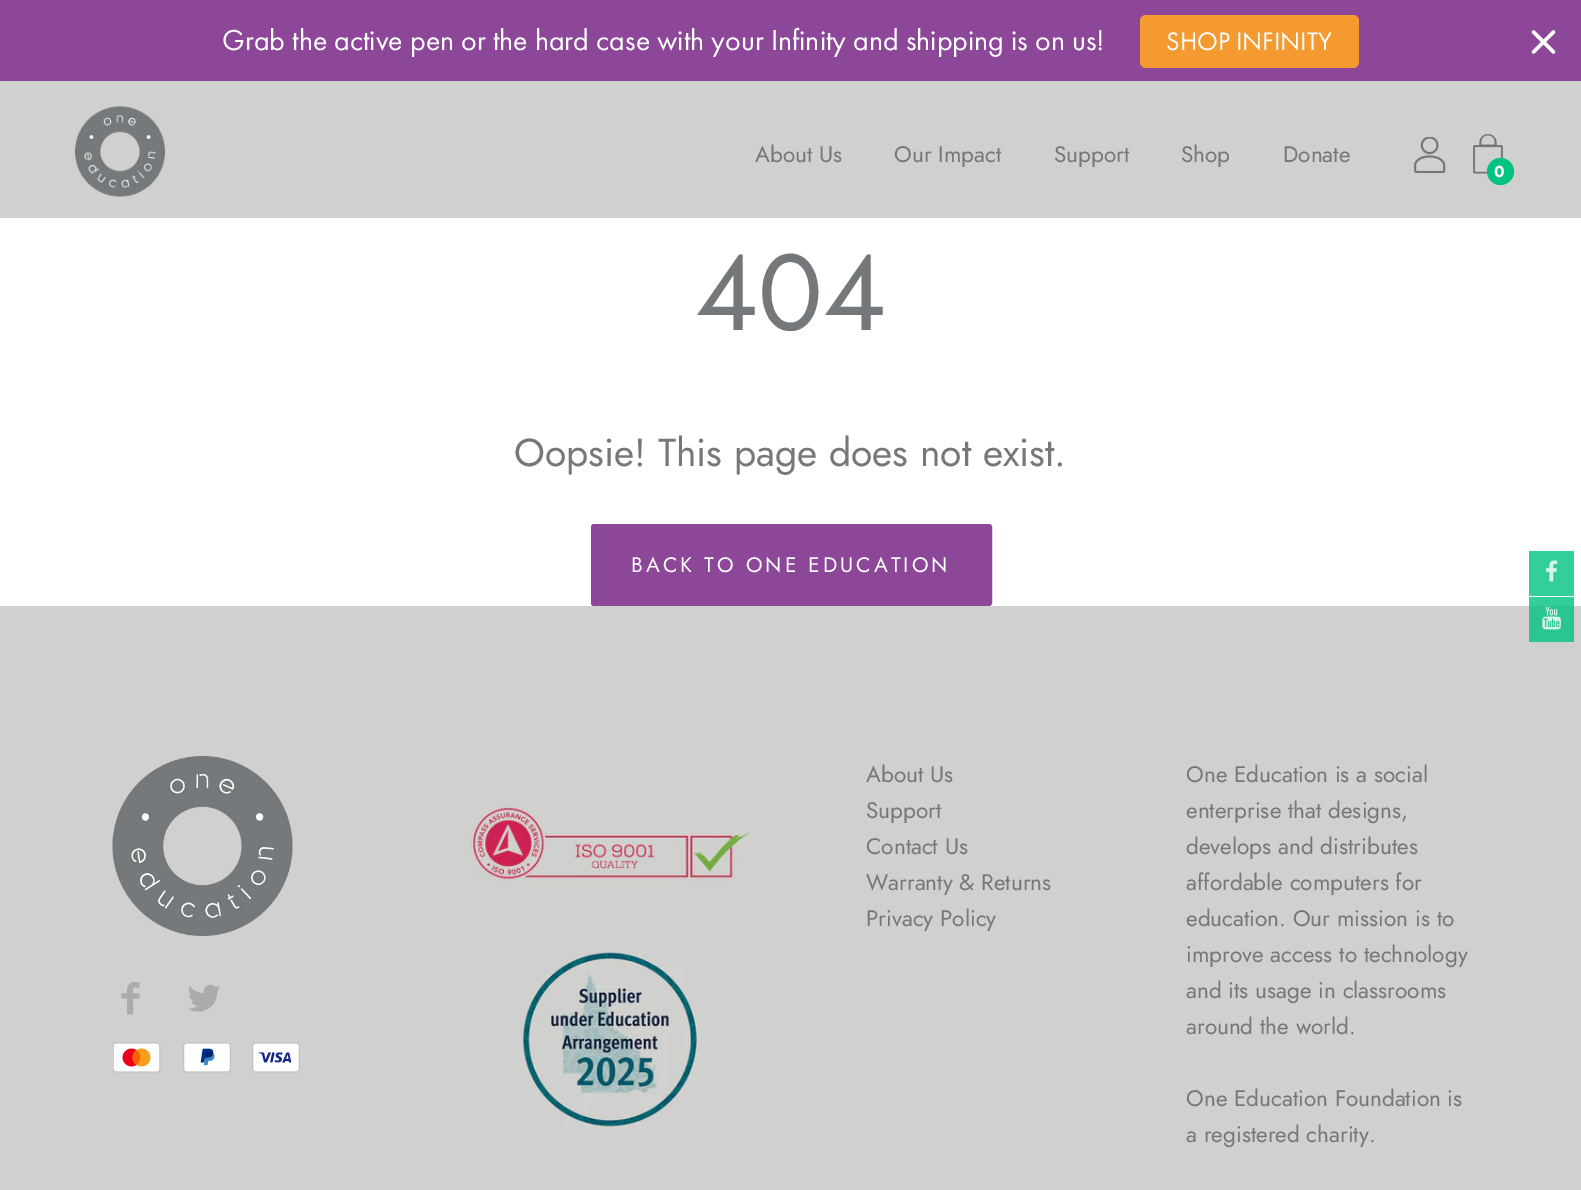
%!PS-Adobe-3.0
%%BoundingBox: 0 0 1581 1190
%%LanguageLevel: 3
%%Pages: 1
%%EndComments
%%BeginProlog
/setink { 3 { 255 div 3 1 roll } repeat setrgbcolor } def
/usefont { [ exch dup neg 0 0 3 -1 roll 0 0 ] selectfont } def
/drawtext { setink usefont moveto show } def
/fillbox { setink rectfill } def
/disc { newpath 0 360 arc closepath } def
/rrect { 5 dict begin { /r /h /w /y /x } { exch def } forall
  x r add y moveto x w add y 2 copy h add r arct x w add y h add x 1 index r arct
  x y h add x y r arct x y 2 copy exch w add exch r arct closepath end } def
/drawimage { 5 dict begin { /h /w /y /x /name } { exch def } forall
  gsave x y translate w h scale
  w h 8 [w 0 0 h 0 0] name (r) file false 3 colorimage grestore end } def
%%EndProlog
%%BeginSetup
<< /PageSize [1581 1190] >> setpagedevice
%%EndSetup
%%Page: 1 1
0 1190 translate 1 -1 scale
4 setmiterlimit
0 0 1581 1190 255 255 255 fillbox
1529 597 45 9 51 206 154 fillbox
0 0 1581 81 140 71 153 fillbox
(Grab the active pen or the hard case with your Infinity and shipping is on us!) 222 50 /FuturaPT-Regular 30 255 255 255 drawtext
245 154 49 setink
1140 15 219 53 6 rrect fill
(SHOP INFINITY) 1166 50 /FuturaPT-Regular 26.25 255 255 255 drawtext
(assets/img1.rgb) 1531 30 25 24 drawimage
0 81 1581 137 208 208 206 fillbox
(assets/img2.rgb) 75 106 90 91 drawimage
(About Us) 755 162 /Jost-Regular 22.5 117 120 123 drawtext
(Our Impact) 894 162 /Jost-Regular 22.5 117 120 123 drawtext
(Support) 1054 162 /Jost-Regular 22.5 117 120 123 drawtext
(Shop) 1181 162 /Jost-Regular 22.5 117 120 123 drawtext
(Donate) 1283 162 /Jost-Regular 22.5 117 120 123 drawtext
(assets/img3.rgb) 1414 137 32 36 drawimage
(assets/img4.rgb) 1473 134 30 40 drawimage
0 194 129 setink
1500.5 171.5 13.5 disc fill
(0) 1494 177 /Jost-Bold 16 255 255 255 drawtext
(404) 695 330 /Jost-Regular 108 117 120 123 drawtext
(Oopsie! This page does not exist.) 514 466 /Jost-Regular 39 117 120 123 drawtext
140 71 153 setink
592.5 525.5 398 79 1.5 rrect gsave fill grestore
3 setlinewidth
stroke
/Jost-Regular 21 usefont
255 255 255 setink
631 572 moveto 3 0 (BACK TO ONE EDUCATION) ashow
0 606 1581 584 208 208 206 fillbox
1529 606 45 36 42 197 144 fillbox
(assets/img5.rgb) 112 756 181 180 drawimage
(assets/img6.rgb) 121 982 19 33 drawimage
(assets/img7.rgb) 188 984 33 28 drawimage
(assets/img8.rgb) 113 1042 48 31 drawimage
(assets/img9.rgb) 183 1042 48 31 drawimage
(assets/img10.rgb) 252 1042 48 31 drawimage
(assets/img11.rgb) 471 803 278 328 drawimage
(About Us) 866 782 /Jost-Regular 22.5 117 120 123 drawtext
(Support) 866 818 /Jost-Regular 22.5 117 120 123 drawtext
(Contact Us) 866 854 /Jost-Regular 22.5 117 120 123 drawtext
(Warranty & Returns) 866 890 /Jost-Regular 22.5 117 120 123 drawtext
(Privacy Policy) 866 926 /Jost-Regular 22.5 117 120 123 drawtext
(One Education is a social) 1186 782 /Jost-Regular 22.5 117 120 123 drawtext
(enterprise that designs,) 1186 818 /Jost-Regular 22.5 117 120 123 drawtext
(develops and distributes) 1186 854 /Jost-Regular 22.5 117 120 123 drawtext
(affordable computers for) 1186 890 /Jost-Regular 22.5 117 120 123 drawtext
(education. Our mission is to) 1186 926 /Jost-Regular 22.5 117 120 123 drawtext
(improve access to technology) 1186 962 /Jost-Regular 22.5 117 120 123 drawtext
(and its usage in classrooms) 1186 998 /Jost-Regular 22.5 117 120 123 drawtext
(around the world.) 1186 1034 /Jost-Regular 22.5 117 120 123 drawtext
(One Education Foundation is) 1186 1106 /Jost-Regular 22.5 117 120 123 drawtext
(a registered charity.) 1186 1142 /Jost-Regular 22.5 117 120 123 drawtext
1529 551 45 45 51 206 154 fillbox
(assets/img12.rgb) 1546 560 12 22 drawimage
(assets/img13.rgb) 1542 606 19 24 drawimage
showpage
%%EOF
